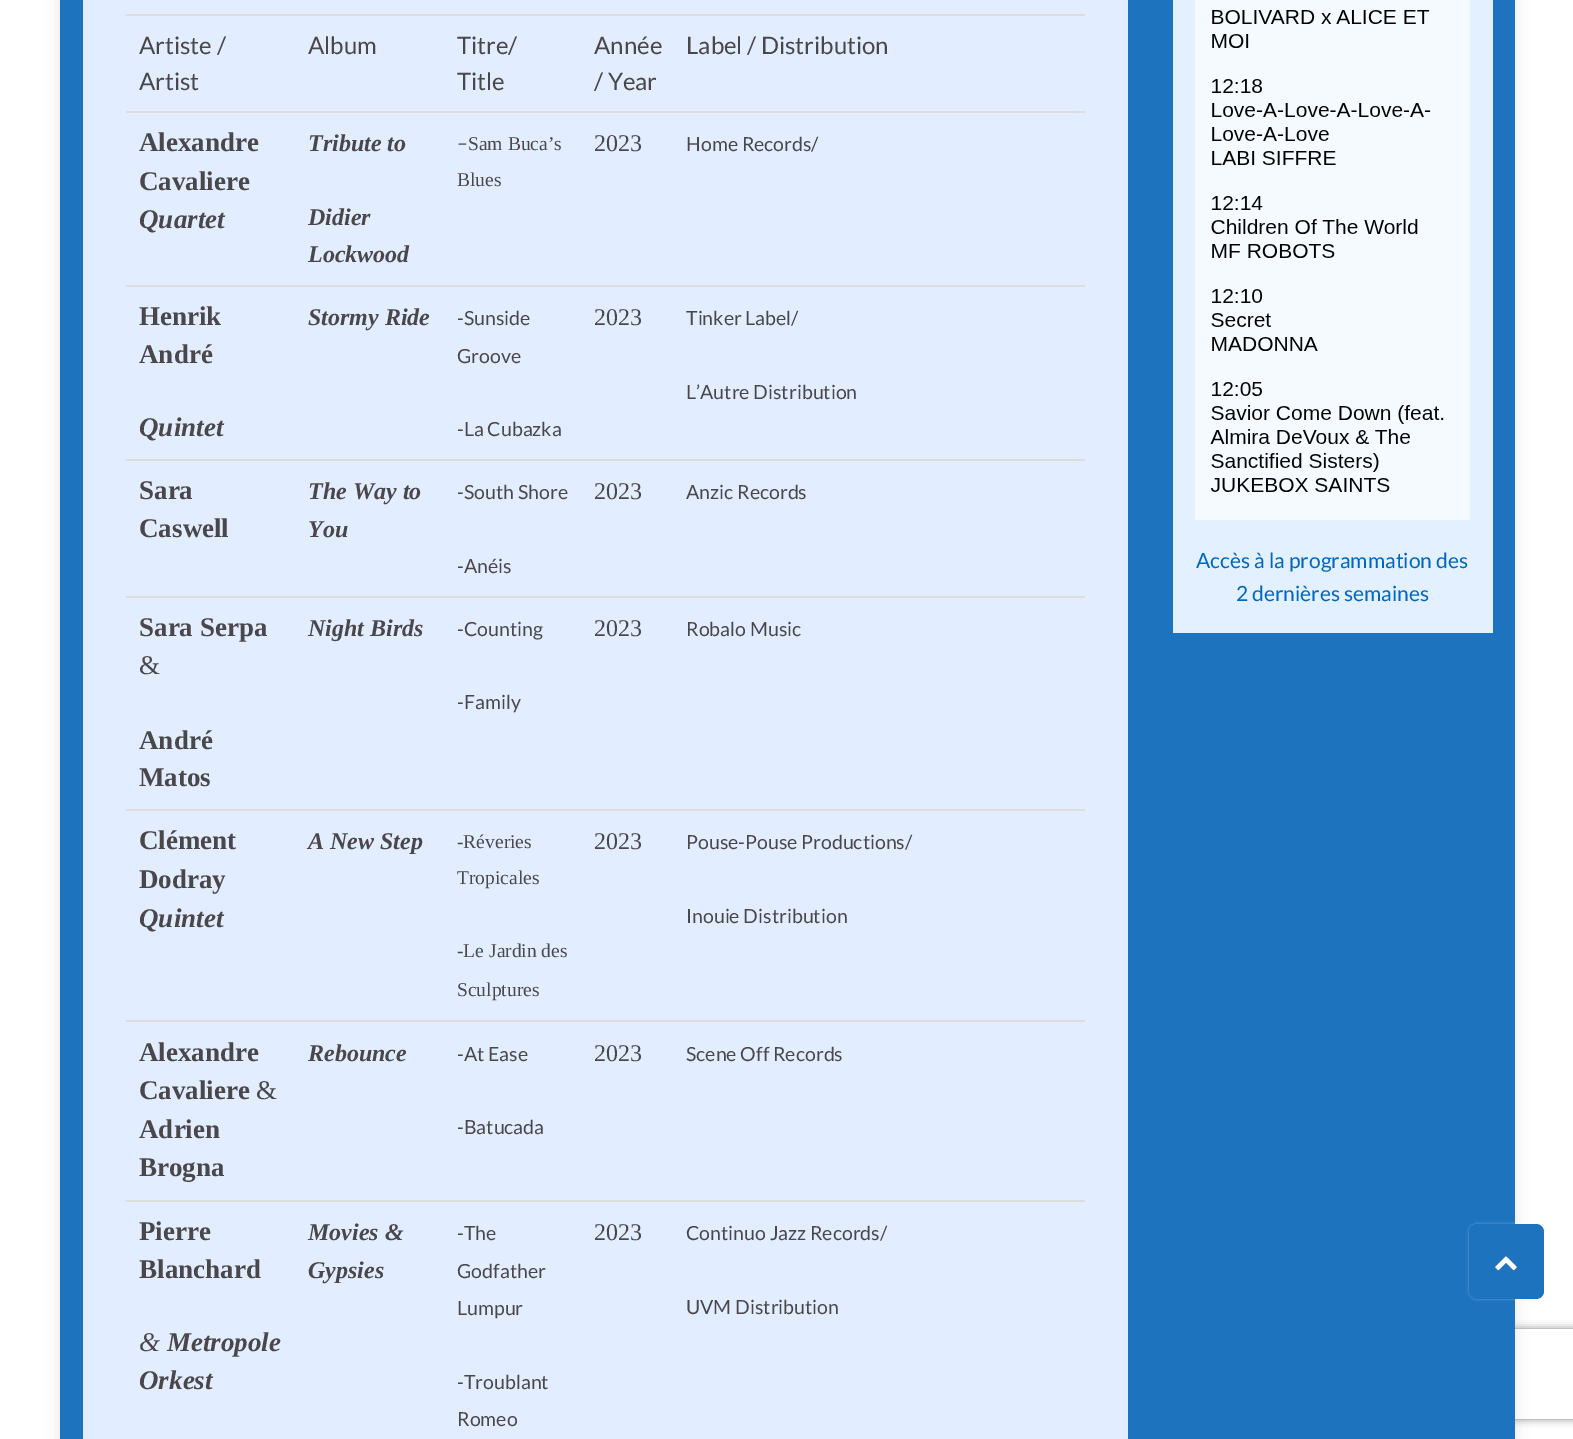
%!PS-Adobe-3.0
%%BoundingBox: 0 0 1573 1439
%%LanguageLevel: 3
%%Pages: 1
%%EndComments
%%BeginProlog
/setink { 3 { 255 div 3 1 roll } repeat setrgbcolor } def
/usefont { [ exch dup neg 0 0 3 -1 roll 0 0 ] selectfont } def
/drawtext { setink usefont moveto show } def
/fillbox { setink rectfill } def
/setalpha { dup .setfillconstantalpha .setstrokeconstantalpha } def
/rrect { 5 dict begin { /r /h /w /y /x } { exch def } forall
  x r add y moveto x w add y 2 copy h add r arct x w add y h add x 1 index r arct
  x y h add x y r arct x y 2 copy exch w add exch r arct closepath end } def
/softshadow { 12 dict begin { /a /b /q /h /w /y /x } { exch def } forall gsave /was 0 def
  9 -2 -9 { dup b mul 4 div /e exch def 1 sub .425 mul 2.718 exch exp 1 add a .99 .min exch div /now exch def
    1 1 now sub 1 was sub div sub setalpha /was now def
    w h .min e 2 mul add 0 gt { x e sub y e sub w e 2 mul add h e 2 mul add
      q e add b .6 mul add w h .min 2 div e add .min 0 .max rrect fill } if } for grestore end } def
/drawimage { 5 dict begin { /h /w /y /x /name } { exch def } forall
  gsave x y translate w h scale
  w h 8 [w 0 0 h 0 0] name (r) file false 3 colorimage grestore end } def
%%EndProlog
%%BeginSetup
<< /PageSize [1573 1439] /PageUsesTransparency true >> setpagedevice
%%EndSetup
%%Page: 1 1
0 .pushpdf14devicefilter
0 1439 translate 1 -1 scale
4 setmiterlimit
0 0 1573 1439 255 255 255 fillbox
0 0 0 setink
60 -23 1455 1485 0 7.5 0.1 softshadow
gsave
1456 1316 moveto 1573 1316 lineto 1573 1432 lineto 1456 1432 lineto closepath 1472 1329 moveto 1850 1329 lineto 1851.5 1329 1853 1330.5 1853 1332 curveto 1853 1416 lineto 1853 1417.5 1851.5 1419 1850 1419 curveto 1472 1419 lineto 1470.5 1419 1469 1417.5 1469 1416 curveto 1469 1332 lineto 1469 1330.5 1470.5 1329 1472 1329 curveto closepath eoclip newpath
128 128 128 setink
1469 1329 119 90 3 4 1 softshadow
grestore
60 0 1455 1439 30 115 190 fillbox
83 0 1045 1439 226 237 255 fillbox
126 14 959 2 221 221 221 fillbox
(Artiste /) 139 54 /Lato-Regular 24 74 71 75 drawtext
(Artist) 139 90 /Lato-Regular 24 74 71 75 drawtext
(Album) 308 54 /Lato-Regular 24 74 71 75 drawtext
(Titre/) 457 54 /Lato-Regular 24 74 71 75 drawtext
(Title) 457 90 /Lato-Regular 24 74 71 75 drawtext
(Année) 594 54 /Lato-Regular 24 74 71 75 drawtext
(/ Year) 594 90 /Lato-Regular 24 74 71 75 drawtext
(Label / Distribution) 686 54 /Lato-Regular 24 74 71 75 drawtext
126 111 959 2 221 221 221 fillbox
(Alexandre) 139 151 /LiberationSerif-Bold 27 74 71 75 drawtext
(Cavaliere) 139 190 /LiberationSerif-Bold 27 74 71 75 drawtext
(Quartet) 139 228 /LiberationSerif-BoldItalic 27 74 71 75 drawtext
(Tribute to) 308 151 /LiberationSerif-BoldItalic 24 74 71 75 drawtext
(Didier) 308 225 /LiberationSerif-BoldItalic 24 74 71 75 drawtext
(Lockwood) 308 262 /LiberationSerif-BoldItalic 24 74 71 75 drawtext
(–) 457 150 /Lato-Regular 19.5 74 71 75 drawtext
(Sam Buca’s) 468 150 /LiberationSerif-Regular 19.5 74 71 75 drawtext
(Blues) 457 186 /LiberationSerif-Regular 19.5 74 71 75 drawtext
(2023) 594 151 /LiberationSerif-Regular 24 74 71 75 drawtext
(Home Records/) 686 151 /Lato-Regular 19.5 74 71 75 drawtext
126 285 959 2 221 221 221 fillbox
(Henrik) 139 325 /LiberationSerif-Bold 27 74 71 75 drawtext
(André) 139 363 /LiberationSerif-Bold 27 74 71 75 drawtext
(Quintet) 139 436 /LiberationSerif-BoldItalic 27 74 71 75 drawtext
(Stormy Ride) 308 325 /LiberationSerif-BoldItalic 24 74 71 75 drawtext
(-Sunside) 457 325 /Lato-Regular 19.5 74 71 75 drawtext
(Groove) 457 363 /Lato-Regular 19.5 74 71 75 drawtext
(-La Cubazka) 457 436 /Lato-Regular 19.5 74 71 75 drawtext
(2023) 594 325 /LiberationSerif-Regular 24 74 71 75 drawtext
(Tinker Label/) 686 325 /Lato-Regular 19.5 74 71 75 drawtext
(L’Autre Distribution) 686 399 /Lato-Regular 19.5 74 71 75 drawtext
126 459 959 2 221 221 221 fillbox
(Sara) 139 499 /LiberationSerif-Bold 27 74 71 75 drawtext
(Caswell) 139 537 /LiberationSerif-Bold 27 74 71 75 drawtext
(The Way to) 308 499 /LiberationSerif-BoldItalic 24 74 71 75 drawtext
(You) 308 537 /LiberationSerif-BoldItalic 24 74 71 75 drawtext
(-South Shore) 457 499 /Lato-Regular 19.5 74 71 75 drawtext
(-Anéis) 457 573 /Lato-Regular 19.5 74 71 75 drawtext
(2023) 594 499 /LiberationSerif-Regular 24 74 71 75 drawtext
(Anzic Records) 686 499 /Lato-Regular 19.5 74 71 75 drawtext
126 596 959 2 221 221 221 fillbox
(Sara Serpa) 139 636 /LiberationSerif-Bold 27 74 71 75 drawtext
(&) 139 674 /LiberationSerif-Regular 27 74 71 75 drawtext
(André) 139 749 /LiberationSerif-Bold 27 74 71 75 drawtext
(Matos) 139 786 /LiberationSerif-Bold 27 74 71 75 drawtext
(Night Birds) 308 636 /LiberationSerif-BoldItalic 24 74 71 75 drawtext
(-Counting) 457 636 /Lato-Regular 19.5 74 71 75 drawtext
(-Family) 457 709 /Lato-Regular 19.5 74 71 75 drawtext
(2023) 594 636 /LiberationSerif-Regular 24 74 71 75 drawtext
(Robalo Music) 686 636 /Lato-Regular 19.5 74 71 75 drawtext
126 809 959 2 221 221 221 fillbox
(Clément) 139 849 /LiberationSerif-Bold 27 74 71 75 drawtext
(Dodray) 139 888 /LiberationSerif-Bold 27 74 71 75 drawtext
(Quintet) 139 927 /LiberationSerif-BoldItalic 27 74 71 75 drawtext
(A New Step) 308 849 /LiberationSerif-BoldItalic 24 74 71 75 drawtext
(-Réveries) 457 848 /LiberationSerif-Regular 19.5 74 71 75 drawtext
(Tropicales) 457 884 /LiberationSerif-Regular 19.5 74 71 75 drawtext
(-Le Jardin des) 457 957 /LiberationSerif-Regular 19.5 74 71 75 drawtext
(Sculptures) 457 996 /LiberationSerif-Regular 19.5 74 71 75 drawtext
(2023) 594 849 /LiberationSerif-Regular 24 74 71 75 drawtext
(Pouse-Pouse Productions/) 686 849 /Lato-Regular 19.5 74 71 75 drawtext
(Inouie Distribution) 686 923 /Lato-Regular 19.5 74 71 75 drawtext
126 1020 959 2 221 221 221 fillbox
(Alexandre) 139 1061 /LiberationSerif-Bold 27 74 71 75 drawtext
(Cavaliere) 139 1099 /LiberationSerif-Bold 27 74 71 75 drawtext
(&) 256 1099 /LiberationSerif-Regular 27 74 71 75 drawtext
(Adrien) 139 1138 /LiberationSerif-Bold 27 74 71 75 drawtext
(Brogna) 139 1176 /LiberationSerif-Bold 27 74 71 75 drawtext
(Rebounce) 308 1061 /LiberationSerif-BoldItalic 24 74 71 75 drawtext
(-At Ease) 457 1061 /Lato-Regular 19.5 74 71 75 drawtext
(-Batucada) 457 1134 /Lato-Regular 19.5 74 71 75 drawtext
(2023) 594 1061 /LiberationSerif-Regular 24 74 71 75 drawtext
(Scene Off Records) 686 1061 /Lato-Regular 19.5 74 71 75 drawtext
126 1200 959 2 221 221 221 fillbox
(Pierre) 139 1240 /LiberationSerif-Bold 27 74 71 75 drawtext
(Blanchard) 139 1278 /LiberationSerif-Bold 27 74 71 75 drawtext
(&) 139 1351 /LiberationSerif-Italic 27 74 71 75 drawtext
(Metropole) 167 1351 /LiberationSerif-BoldItalic 27 74 71 75 drawtext
(Orkest) 139 1389 /LiberationSerif-BoldItalic 27 74 71 75 drawtext
(Movies &) 308 1240 /LiberationSerif-BoldItalic 24 74 71 75 drawtext
(Gypsies) 308 1278 /LiberationSerif-BoldItalic 24 74 71 75 drawtext
(-The) 457 1240 /Lato-Regular 19.5 74 71 75 drawtext
(Godfather) 457 1278 /Lato-Regular 19.5 74 71 75 drawtext
(Lumpur) 457 1315 /Lato-Regular 19.5 74 71 75 drawtext
(-Troublant) 457 1389 /Lato-Regular 19.5 74 71 75 drawtext
(Romeo) 457 1426 /Lato-Regular 19.5 74 71 75 drawtext
(2023) 594 1240 /LiberationSerif-Regular 24 74 71 75 drawtext
(Continuo Jazz Records/) 686 1240 /Lato-Regular 19.5 74 71 75 drawtext
(UVM Distribution) 686 1314 /Lato-Regular 19.5 74 71 75 drawtext
1173 0 320 633 226 240 255 fillbox
(assets/img1.rgb) 1195 0 275 520 drawimage
(Accès à la programmation des) 1196 568 /Lato-Regular 21 0 102 191 drawtext
(2 dernières semaines) 1236 601 /Lato-Regular 21 0 102 191 drawtext
255 255 255 setink
1469 1224 75 75 8 1.5 0.3 softshadow
30 115 190 setink
1469 1224 75 75 8 rrect fill
(assets/img2.rgb) 1495 1256 22 15 drawimage
.poppdf14devicefilter showpage
%%EOF
